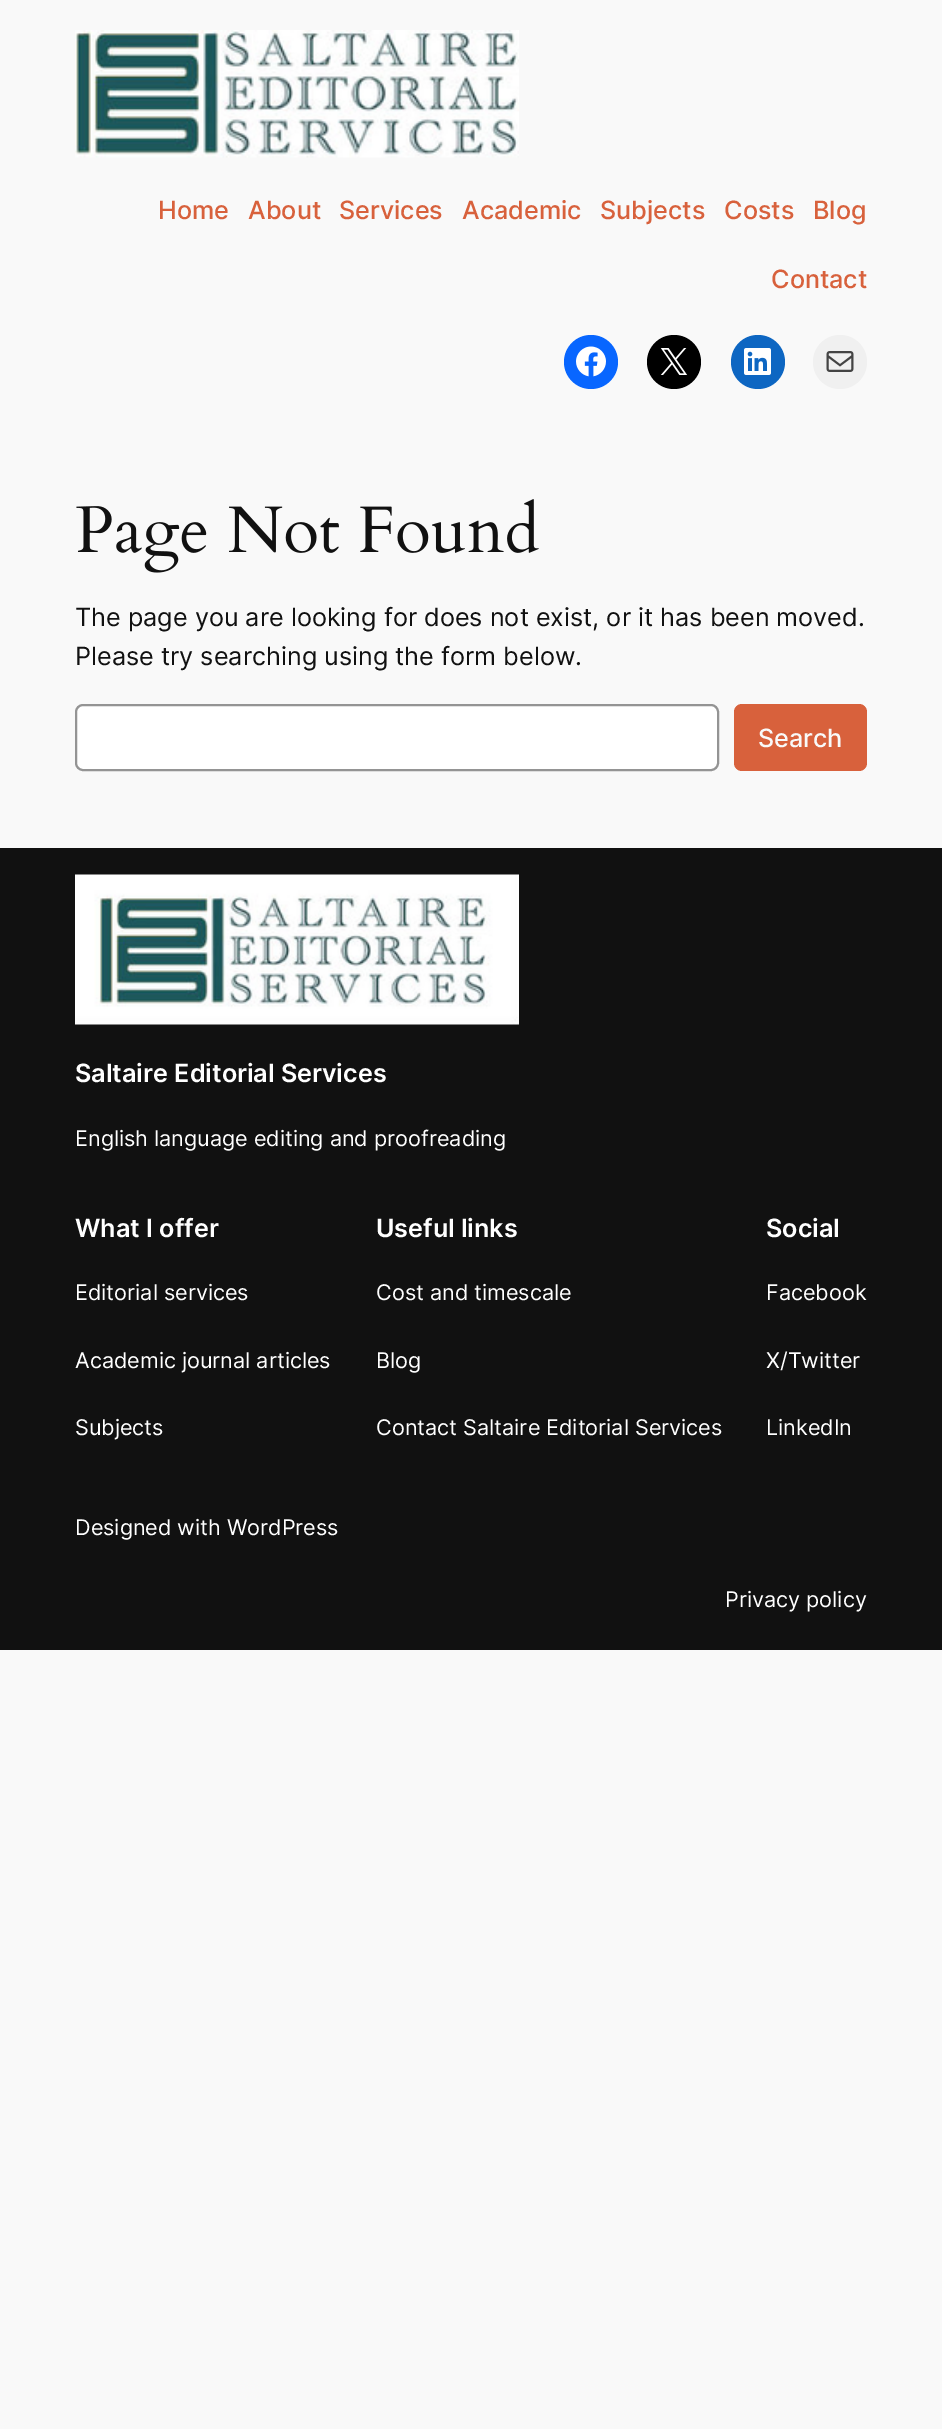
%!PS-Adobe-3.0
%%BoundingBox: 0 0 942 2429
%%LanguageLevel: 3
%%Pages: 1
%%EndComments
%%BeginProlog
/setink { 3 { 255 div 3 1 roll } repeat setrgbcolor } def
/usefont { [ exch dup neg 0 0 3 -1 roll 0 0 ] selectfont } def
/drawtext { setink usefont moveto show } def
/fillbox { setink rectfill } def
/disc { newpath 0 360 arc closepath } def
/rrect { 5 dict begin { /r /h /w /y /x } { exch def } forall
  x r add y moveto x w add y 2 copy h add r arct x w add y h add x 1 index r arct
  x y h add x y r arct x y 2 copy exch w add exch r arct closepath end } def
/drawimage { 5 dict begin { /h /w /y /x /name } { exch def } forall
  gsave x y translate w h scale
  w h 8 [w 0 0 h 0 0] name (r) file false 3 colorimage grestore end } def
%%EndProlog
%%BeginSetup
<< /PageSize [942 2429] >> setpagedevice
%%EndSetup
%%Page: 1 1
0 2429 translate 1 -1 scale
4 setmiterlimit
0 0 942 2429 249 249 249 fillbox
(assets/img1.rgb) 75 30 444 128 drawimage
(Home) 158 219 /Inter-Medium 25.2 216 97 60 drawtext
(About) 248 219 /Inter-Medium 25.2 216 97 60 drawtext
(Services) 339 219 /Inter-Medium 25.2 216 97 60 drawtext
(Academic) 462 219 /Inter-Medium 25.2 216 97 60 drawtext
(Subjects) 600 219 /Inter-Medium 25.2 216 97 60 drawtext
(Costs) 724 219 /Inter-Medium 25.2 216 97 60 drawtext
(Blog) 813 219 /Inter-Medium 25.2 216 97 60 drawtext
(Contact) 771 288 /Inter-Medium 25.2 216 97 60 drawtext
8 102 255 setink
591 362 27 disc fill
(assets/img2.rgb) 576 346 30 31 drawimage
0 0 0 setink
674 362 27 disc fill
(assets/img3.rgb) 660 348 28 27 drawimage
13 102 194 setink
758 362 27 disc fill
(assets/img4.rgb) 744 348 27 27 drawimage
240 240 240 setink
840 362 27 disc fill
(assets/img5.rgb) 826 351 28 21 drawimage
(assets/img6.rgb) 76 499 463 74 drawimage
(The page you are looking for does not exist, or it has been moved.) 75 626 /Inter-Regular 25.2 17 17 17 drawtext
(Please try searching using the form below.) 75 665 /Inter-Regular 25.2 17 17 17 drawtext
255 255 255 setink
76 705 642 65 7 rrect gsave fill grestore
148 148 148 setink
2 setlinewidth
stroke
216 97 60 setink
734 704 133 67 8 rrect fill
(Search) 758 747 /Inter-Medium 25.2 249 249 249 drawtext
0 848 942 802 17 17 17 fillbox
(assets/img7.rgb) 75 874 444 151 drawimage
(Saltaire Editorial Services) 75 1082 /Inter-SemiBold 25.2 255 255 255 drawtext
(English language editing and proofreading) 75 1146 /Inter-Regular 21.6 255 255 255 drawtext
(What I offer) 75 1237 /Inter-SemiBold 25.2 255 255 255 drawtext
(Editorial services) 75 1300 /Inter-Regular 21.6 255 255 255 drawtext
(Academic journal articles) 75 1368 /Inter-Regular 21.6 255 255 255 drawtext
(Subjects) 75 1435 /Inter-Regular 21.6 255 255 255 drawtext
(Useful links) 376 1237 /Inter-SemiBold 25.2 255 255 255 drawtext
(Cost and timescale) 376 1300 /Inter-Regular 21.6 255 255 255 drawtext
(Blog) 376 1368 /Inter-Regular 21.6 255 255 255 drawtext
(Contact Saltaire Editorial Services) 376 1435 /Inter-Regular 21.6 255 255 255 drawtext
(Social) 766 1237 /Inter-SemiBold 25.2 255 255 255 drawtext
(Facebook) 766 1300 /Inter-Regular 21.6 255 255 255 drawtext
(X/Twitter) 766 1368 /Inter-Regular 21.6 255 255 255 drawtext
(LinkedIn) 766 1435 /Inter-Regular 21.6 255 255 255 drawtext
(Designed with WordPress) 75 1535 /Inter-Regular 21.6 255 255 255 drawtext
(Privacy policy) 725 1607 /Inter-Regular 21.6 255 255 255 drawtext
showpage
%%EOF
